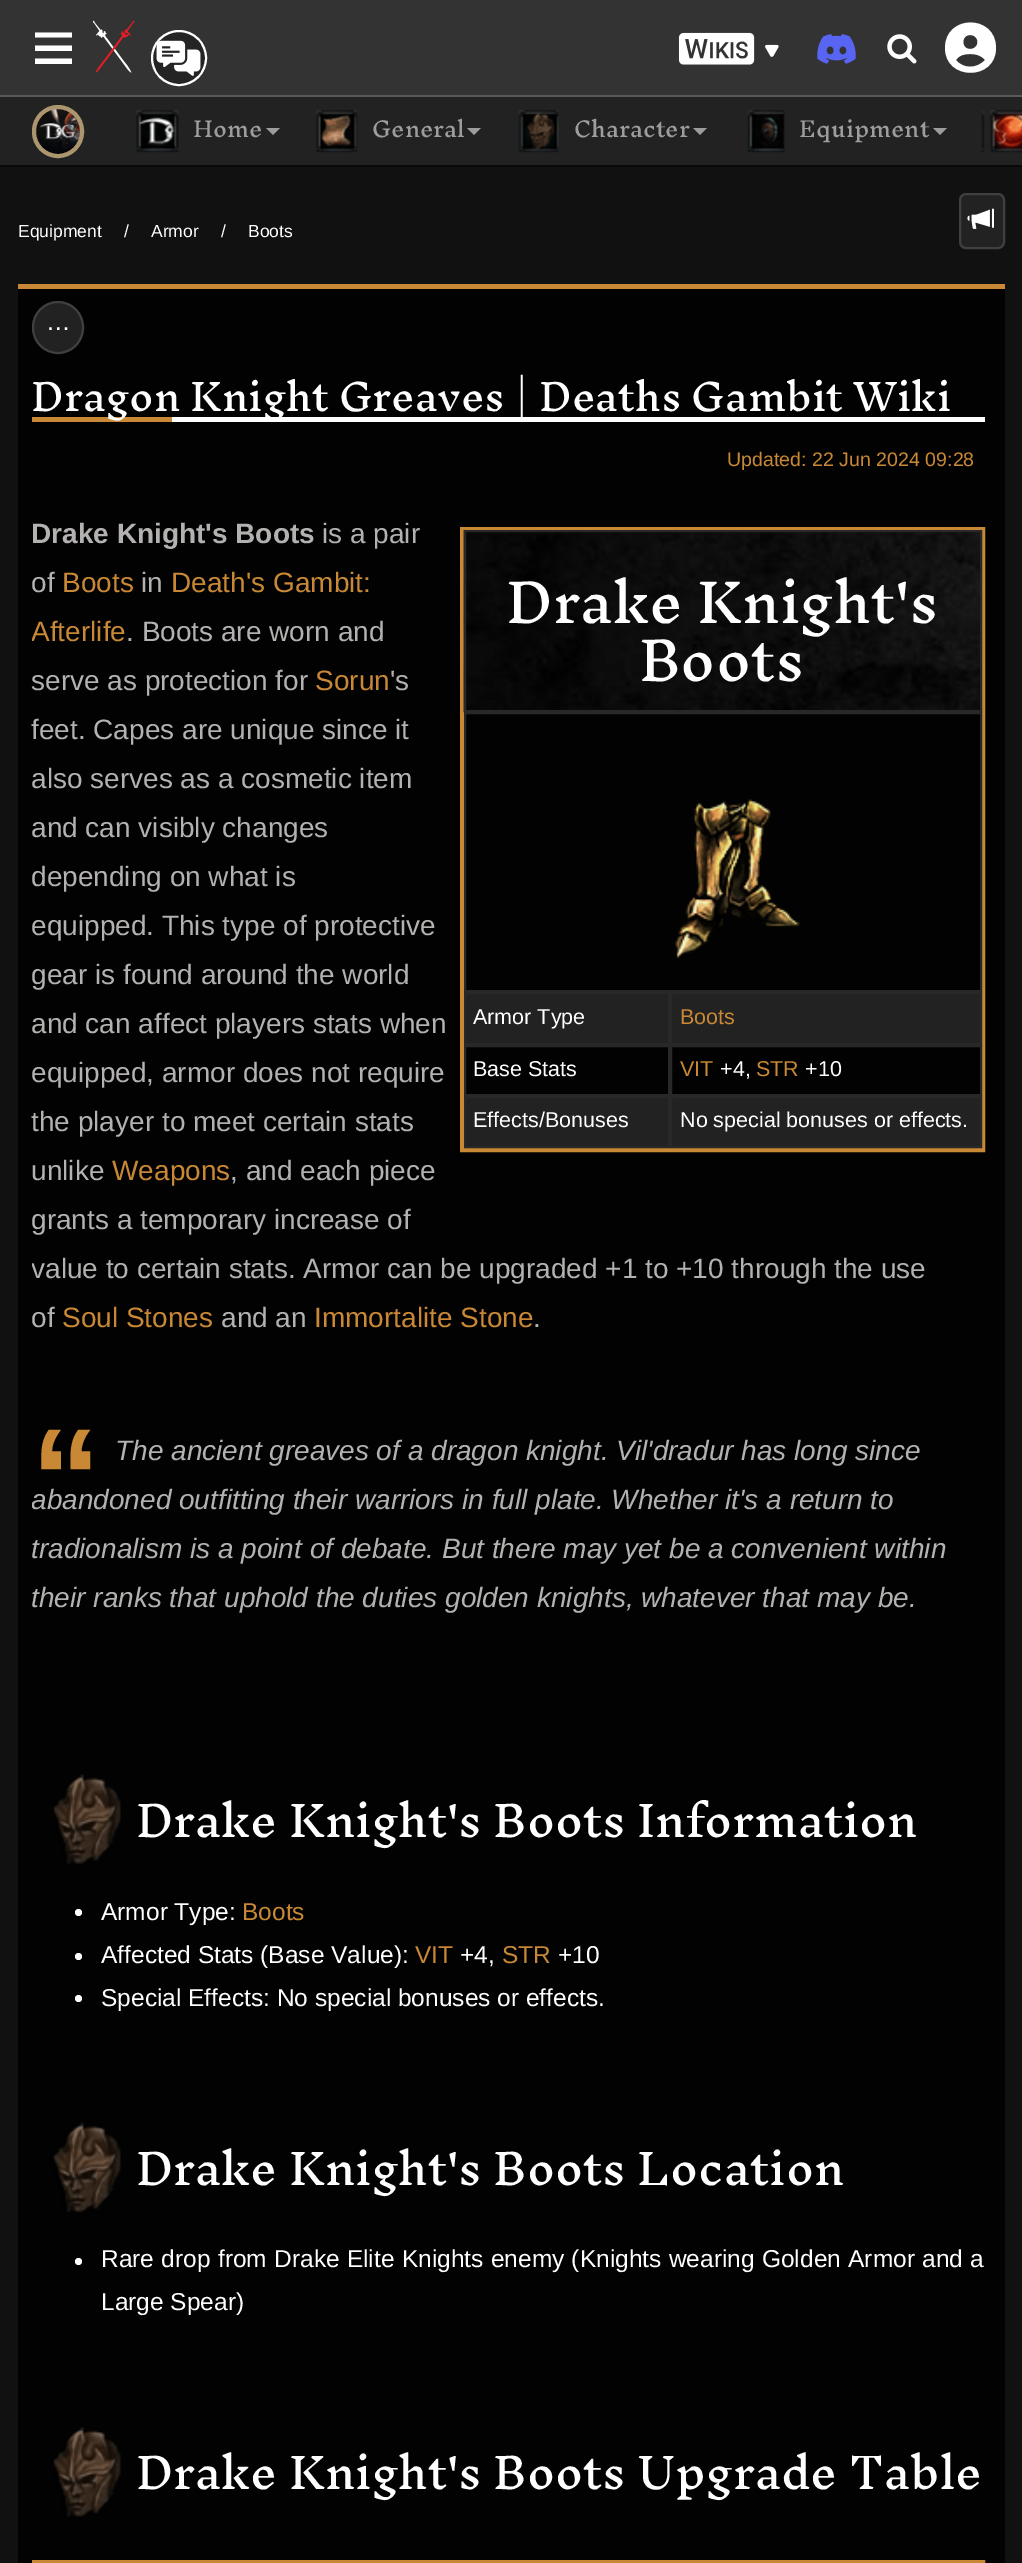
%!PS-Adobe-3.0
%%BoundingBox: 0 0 1022 2563
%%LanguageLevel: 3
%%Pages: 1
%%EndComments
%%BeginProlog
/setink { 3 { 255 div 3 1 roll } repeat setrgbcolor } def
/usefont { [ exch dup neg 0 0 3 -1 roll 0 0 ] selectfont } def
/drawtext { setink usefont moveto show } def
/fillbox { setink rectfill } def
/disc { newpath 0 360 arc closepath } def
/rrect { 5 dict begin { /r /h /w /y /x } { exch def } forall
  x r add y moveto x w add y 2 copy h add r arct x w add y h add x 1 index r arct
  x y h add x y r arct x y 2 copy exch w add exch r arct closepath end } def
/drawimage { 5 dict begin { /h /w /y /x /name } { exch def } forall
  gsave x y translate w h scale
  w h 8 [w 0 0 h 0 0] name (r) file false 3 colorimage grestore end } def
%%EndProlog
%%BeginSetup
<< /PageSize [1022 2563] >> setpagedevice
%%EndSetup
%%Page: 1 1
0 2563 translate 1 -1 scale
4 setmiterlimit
0 0 1022 2563 17 17 17 fillbox
0 0 1022 95 51 51 51 fillbox
0 95 1022 2 89 89 89 fillbox
255 255 255 setink
35 32.5 moveto 72 32.5 lineto 72 37.5 lineto 35 37.5 lineto closepath 35 45.5 moveto 72 45.5 lineto 72 51 lineto 35 51 lineto closepath 72 58.5 moveto 72 64 lineto 35 64 lineto 35 58.5 lineto closepath fill
(assets/img1.rgb) 93 20 42 53 drawimage
36 36 36 setink
179 58 27 disc gsave fill grestore
255 255 255 setink
2 setlinewidth
stroke
(assets/img2.rgb) 156 40 45 36 drawimage
(assets/img3.rgb) 678 32 101 33 drawimage
(assets/img4.rgb) 817 34 39 30 drawimage
(assets/img5.rgb) 887 34 30 30 drawimage
985 60 moveto 981 55 976 54 970 54 curveto 965 54 959 55 956 60 curveto 963 69 977 69 985 60 curveto closepath 945 48 moveto 945 14 996 14 996 48 curveto 996 81 945 81 945 48 curveto closepath 970 49 moveto 980 49 980 35 970 35 curveto 961 35 961 49 970 49 curveto closepath fill
0 97 1022 68 34 34 34 fillbox
0 165 1022 2 8 8 8 fillbox
(assets/img6.rgb) 34 108 47 46 drawimage
171 150 111 setink
4 setlinewidth
34 107 48 49 24 rrect stroke
(assets/img7.rgb) 136 110 43 43 drawimage
(Home) 193 137 /InknutAntiqua-Regular 21 157 157 157 drawtext
266 128 moveto 280 128 lineto 273 135 lineto closepath fill
(assets/img8.rgb) 316 110 42 43 drawimage
(General) 372 137 /InknutAntiqua-Regular 21 157 157 157 drawtext
467 128 moveto 481 128 lineto 474 135 lineto closepath fill
(assets/img9.rgb) 518 110 41 43 drawimage
(Character) 574 137 /InknutAntiqua-Regular 21 157 157 157 drawtext
693 128 moveto 707 128 lineto 700 135 lineto closepath fill
(assets/img10.rgb) 747 110 38 43 drawimage
(Equipment) 799 137 /InknutAntiqua-Regular 21 157 157 157 drawtext
933 128 moveto 947 128 lineto 940 135 lineto closepath fill
(assets/img11.rgb) 981 110 41 43 drawimage
(Equipment) 18 237 /LiberationSans-Regular 17.5 255 255 255 drawtext
(/) 124 237 /LiberationSans-Regular 17.5 255 255 255 drawtext
(Armor) 151 237 /LiberationSans-Regular 17.5 255 255 255 drawtext
(/) 221 237 /LiberationSans-Regular 17.5 255 255 255 drawtext
(Boots) 248 237 /LiberationSans-Regular 17.5 255 255 255 drawtext
34 34 34 setink
960 194 44 54 6 rrect gsave fill grestore
64 64 64 setink
2 setlinewidth
stroke
(assets/img12.rgb) 967 208 27 21 drawimage
18 289 987 2274 2 2 2 fillbox
34 34 34 setink
33 302 50 51 25 rrect gsave fill grestore
64 64 64 setink
stroke
(…) 46 330 /LiberationSans-Regular 24.5 255 255 255 drawtext
18 284 987 5 201 136 53 fillbox
172 417 813 5 255 255 255 fillbox
32 417 140 5 201 136 53 fillbox
(Dragon Knight Greaves | Deaths Gambit Wiki) 31 411 /InknutAntiqua-Regular 36.75 255 255 255 drawtext
(Updated: 22 Jun 2024 09:28) 727 466 /LiberationSans-Regular 19.6 201 136 53 drawtext
(Drake Knight's Boots) 31 543 /LiberationSans-Bold 28 180 178 176 drawtext
(is a pair) 322 543 /LiberationSans-Regular 28 180 178 176 drawtext
gsave
32 341 960 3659 rectclip
(of) 31 592 /LiberationSans-Regular 28 180 178 176 drawtext
grestore
(Boots) 62 592 /LiberationSans-Regular 28 201 136 53 drawtext
(in) 141 592 /LiberationSans-Regular 28 180 178 176 drawtext
(Death's Gambit:) 171 592 /LiberationSans-Regular 28 201 136 53 drawtext
gsave
32 341 960 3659 rectclip
(Afterlife) 31 641 /LiberationSans-Regular 28 201 136 53 drawtext
grestore
(. Boots are worn and) 126 641 /LiberationSans-Regular 28 180 178 176 drawtext
(serve as protection for) 31 690 /LiberationSans-Regular 28 180 178 176 drawtext
(Sorun) 315 690 /LiberationSans-Regular 28 201 136 53 drawtext
('s) 390 690 /LiberationSans-Regular 28 180 178 176 drawtext
(feet. Capes are unique since it) 31 739 /LiberationSans-Regular 28 180 178 176 drawtext
(also serves as a cosmetic item) 31 788 /LiberationSans-Regular 28 180 178 176 drawtext
(and can visibly changes) 31 837 /LiberationSans-Regular 28 180 178 176 drawtext
gsave
32 341 960 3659 rectclip
(depending on what is) 31 886 /LiberationSans-Regular 28 180 178 176 drawtext
(equipped. This type of protective) 31 935 /LiberationSans-Regular 28 180 178 176 drawtext
(gear is found around the world) 31 984 /LiberationSans-Regular 28 180 178 176 drawtext
grestore
(and can affect players stats when) 31 1033 /LiberationSans-Regular 28 180 178 176 drawtext
gsave
32 341 960 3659 rectclip
(equipped, armor does not require) 31 1082 /LiberationSans-Regular 28 180 178 176 drawtext
grestore
(the player to meet certain stats) 31 1131 /LiberationSans-Regular 28 180 178 176 drawtext
(unlike) 31 1180 /LiberationSans-Regular 28 180 178 176 drawtext
(Weapons) 112 1180 /LiberationSans-Regular 28 201 136 53 drawtext
(, and each piece) 230 1180 /LiberationSans-Regular 28 180 178 176 drawtext
gsave
32 341 960 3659 rectclip
(grants a temporary increase of) 31 1229 /LiberationSans-Regular 28 180 178 176 drawtext
(value to certain stats. Armor can be upgraded +1 to +10 through the use) 31 1278 /LiberationSans-Regular 28 180 178 176 drawtext
(of) 31 1327 /LiberationSans-Regular 28 180 178 176 drawtext
grestore
(Soul Stones) 62 1327 /LiberationSans-Regular 28 201 136 53 drawtext
(and an) 221 1327 /LiberationSans-Regular 28 180 178 176 drawtext
(Immortalite Stone) 314 1327 /LiberationSans-Regular 28 201 136 53 drawtext
(.) 533 1327 /LiberationSans-Regular 28 180 178 176 drawtext
201 136 53 setink
4 setlinewidth
462 529 521 621 rectstroke
(assets/img13.rgb) 463 530 517 183 drawimage
40 40 40 setink
2 setlinewidth
465 531 516 180 rectstroke
(Drake Knight's) 506 623 /InknutAntiqua-Regular 52.5 255 255 255 drawtext
(Boots) 639 681 /InknutAntiqua-Regular 52.5 255 255 255 drawtext
40 40 40 setink
465 713 516 278 rectstroke
(assets/img14.rgb) 674 799 126 159 drawimage
466 994 514 49 34 34 34 fillbox
40 40 40 setink
465 993 204 51 rectstroke
(Armor Type) 473 1024 /LiberationSans-Regular 21.5 255 255 255 drawtext
40 40 40 setink
671 993 310 51 rectstroke
(Boots) 680 1024 /LiberationSans-Regular 21.5 201 136 53 drawtext
40 40 40 setink
465 1046 204 49 rectstroke
(Base Stats) 473 1076 /LiberationSans-Regular 21.5 255 255 255 drawtext
40 40 40 setink
671 1046 310 49 rectstroke
(VIT) 680 1076 /LiberationSans-Regular 21.5 201 136 53 drawtext
(+4,) 720 1076 /LiberationSans-Regular 21.5 255 255 255 drawtext
(STR) 756 1076 /LiberationSans-Regular 21.5 201 136 53 drawtext
(+10) 805 1076 /LiberationSans-Regular 21.5 255 255 255 drawtext
466 1098 514 48 34 34 34 fillbox
40 40 40 setink
465 1097 204 50 rectstroke
(Effects/Bonuses) 473 1127 /LiberationSans-Regular 21.5 255 255 255 drawtext
40 40 40 setink
671 1097 310 50 rectstroke
(No special bonuses or effects.) 680 1127 /LiberationSans-Regular 21.5 255 255 255 drawtext
/LiberationSans-Bold 140 usefont
201 136 53 setink
31 1526 moveto -5 0 (“) ashow
(The ancient greaves of a dragon knight. Vil'dradur has long since) 115 1460 /LiberationSans-Italic 28 180 178 176 drawtext
gsave
32 341 960 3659 rectclip
(abandoned outfitting their warriors in full plate. Whether it's a return to) 31 1509 /LiberationSans-Italic 28 180 178 176 drawtext
grestore
(tradionalism is a point of debate. But there may yet be a convenient within) 31 1558 /LiberationSans-Italic 28 180 178 176 drawtext
(their ranks that uphold the duties golden knights, whatever that may be.) 31 1607 /LiberationSans-Italic 28 180 178 176 drawtext
(assets/img15.rgb) 53 1774 68 91 drawimage
(Drake Knight's Boots Information) 136 1837 /InknutAntiqua-Regular 42 255 255 255 drawtext
78.5 1912.5 3.5 disc fill
(Armor Type:) 101 1920 /LiberationSans-Regular 24.5 255 255 255 drawtext
(Boots) 242 1920 /LiberationSans-Regular 24.5 201 136 53 drawtext
255 255 255 setink
78.5 1956.5 3.5 disc fill
(Affected Stats \(Base Value\):) 101 1963 /LiberationSans-Regular 24.5 255 255 255 drawtext
(VIT) 415 1963 /LiberationSans-Regular 24.5 201 136 53 drawtext
(+4,) 460 1963 /LiberationSans-Regular 24.5 255 255 255 drawtext
(STR) 502 1963 /LiberationSans-Regular 24.5 201 136 53 drawtext
(+10) 558 1963 /LiberationSans-Regular 24.5 255 255 255 drawtext
78.5 1998.5 3.5 disc fill
(Special Effects: No special bonuses or effects.) 101 2006 /LiberationSans-Regular 24.5 255 255 255 drawtext
(assets/img16.rgb) 53 2122 68 91 drawimage
(Drake Knight's Boots Location) 136 2185 /InknutAntiqua-Regular 42 255 255 255 drawtext
78.5 2261.5 3.5 disc fill
/LiberationSans-Regular 24.5 usefont
101 2267 moveto 0.5 0 32 (Rare drop from Drake Elite Knights enemy \(Knights wearing Golden Armor and a) widthshow
(Large Spear\)) 101 2310 /LiberationSans-Regular 24.5 255 255 255 drawtext
(assets/img17.rgb) 53 2427 68 90 drawimage
(Drake Knight's Boots Upgrade Table) 136 2489 /InknutAntiqua-Regular 42 255 255 255 drawtext
201 136 53 setink
4 setlinewidth
34 2562 949 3 rectstroke
showpage
%%EOF
